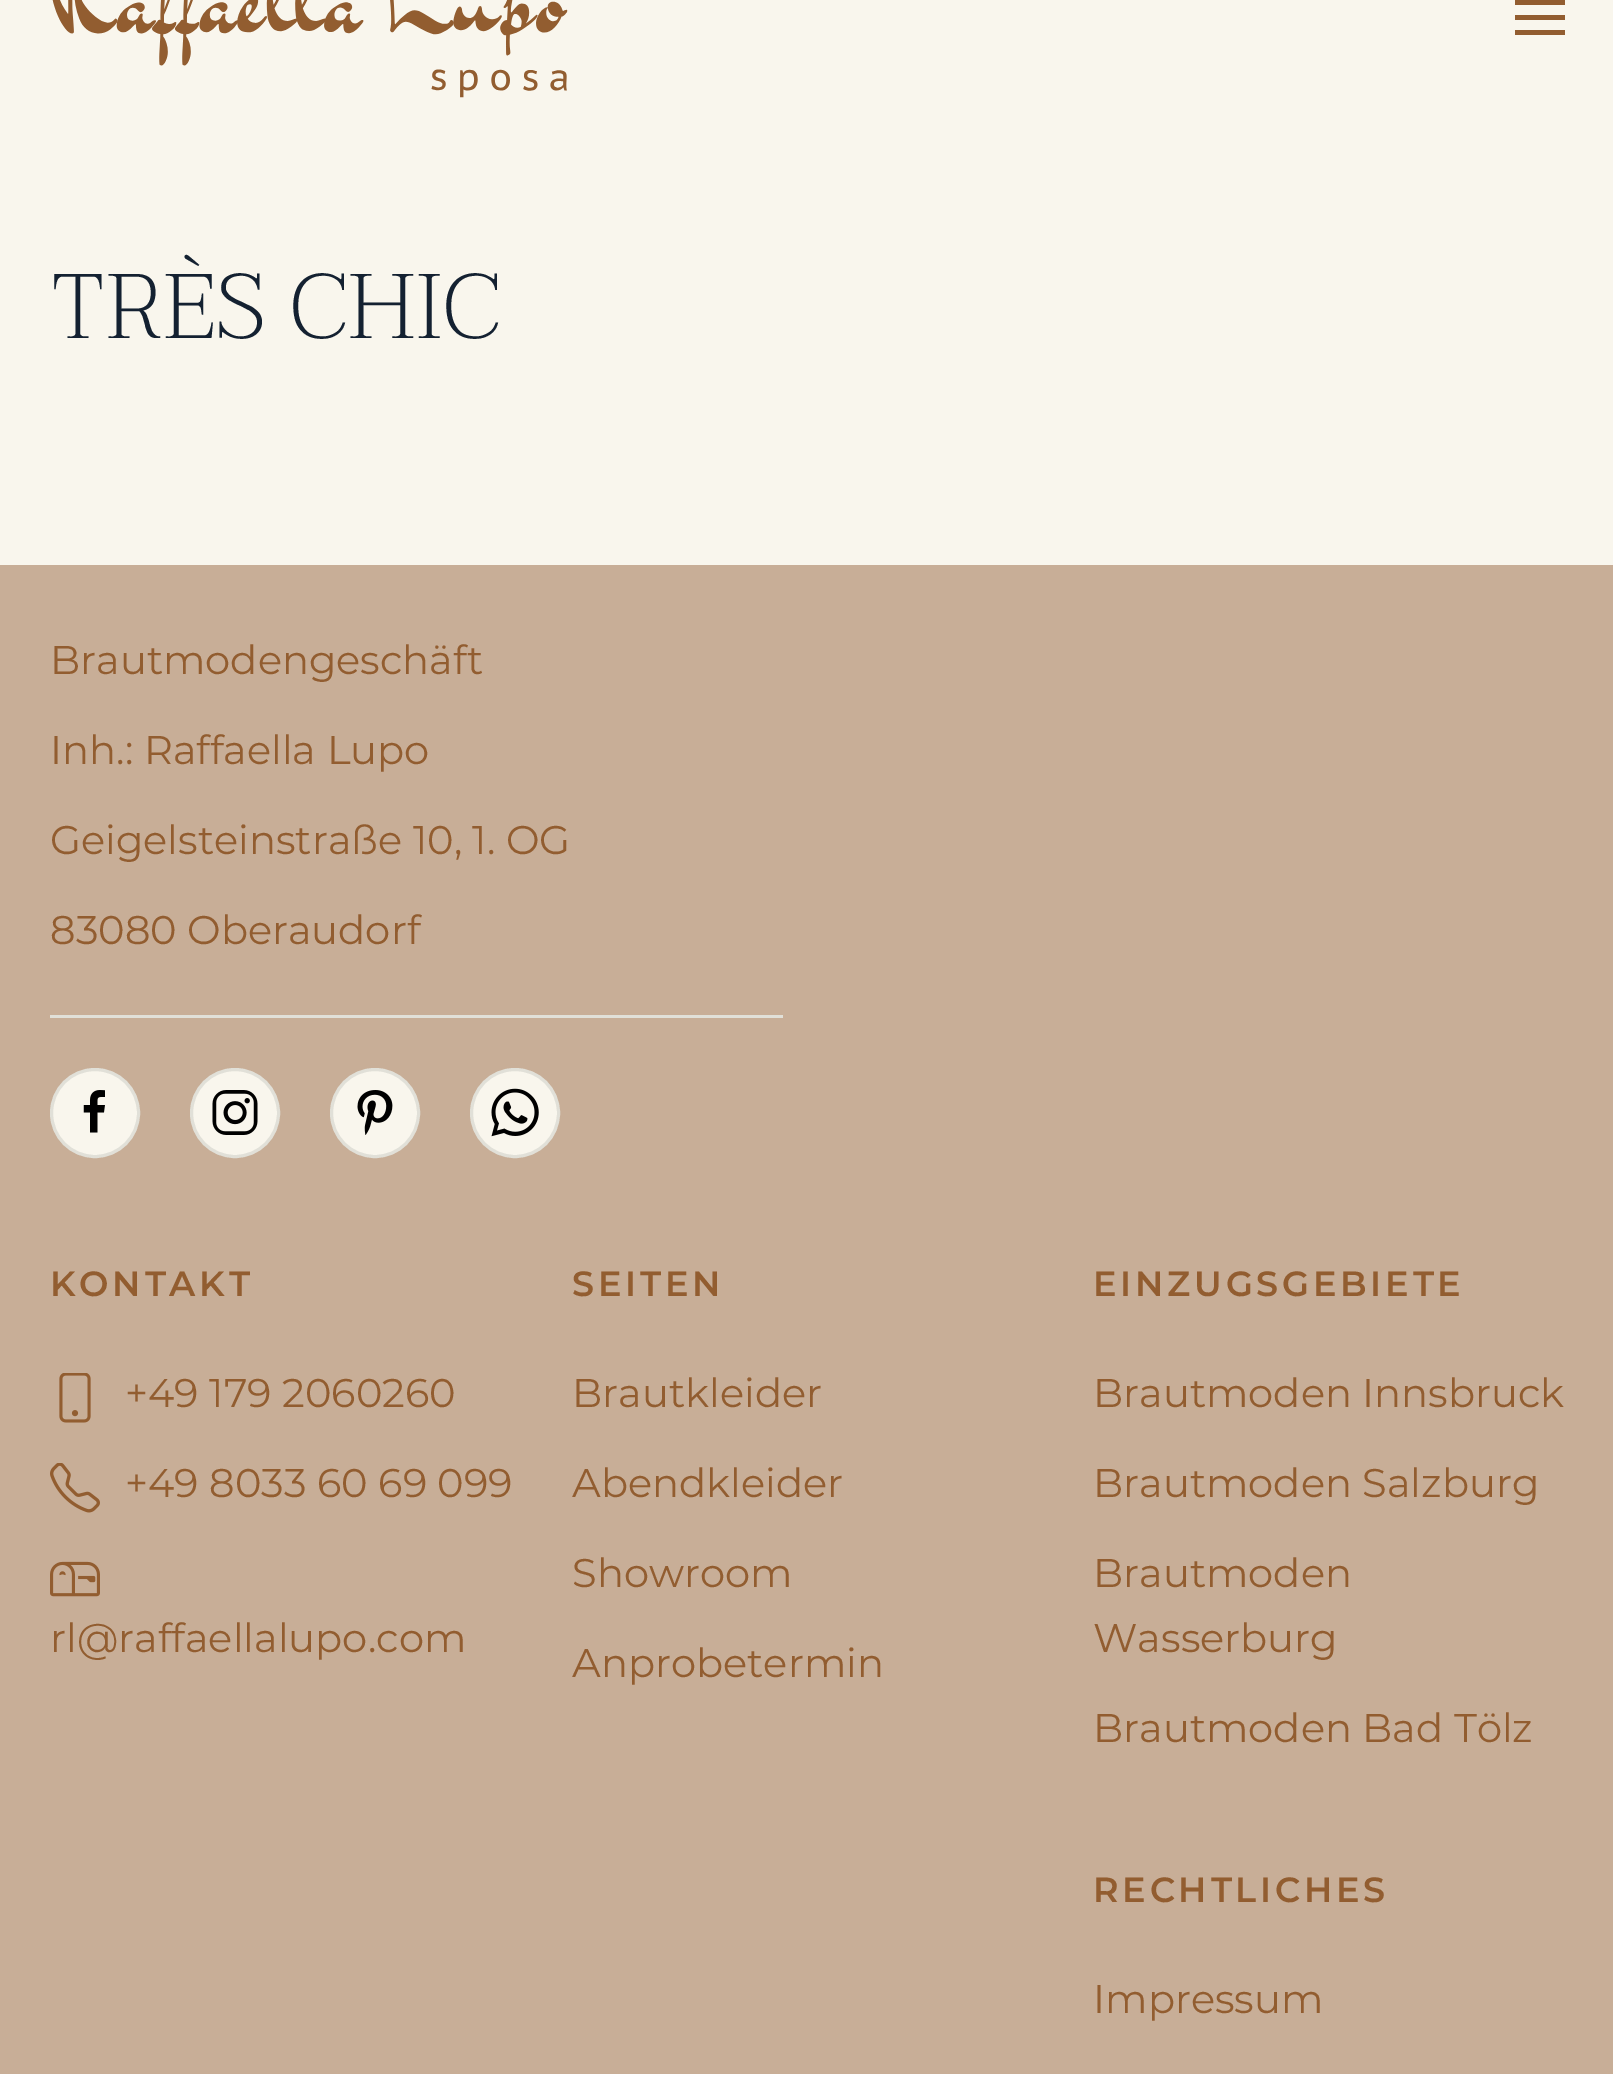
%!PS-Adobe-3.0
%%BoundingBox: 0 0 1613 2074
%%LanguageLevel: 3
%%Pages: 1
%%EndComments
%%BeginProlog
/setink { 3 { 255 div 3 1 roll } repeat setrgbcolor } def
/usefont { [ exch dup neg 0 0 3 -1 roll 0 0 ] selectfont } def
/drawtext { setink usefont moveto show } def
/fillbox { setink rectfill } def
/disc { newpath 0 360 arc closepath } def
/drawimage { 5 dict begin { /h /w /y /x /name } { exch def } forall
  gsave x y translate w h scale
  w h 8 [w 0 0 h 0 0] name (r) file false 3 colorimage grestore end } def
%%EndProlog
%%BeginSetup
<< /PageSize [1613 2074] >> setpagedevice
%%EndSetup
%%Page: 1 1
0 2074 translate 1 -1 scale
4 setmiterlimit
0 0 1613 2074 200 174 151 fillbox
0 0 1613 565 249 246 237 fillbox
(assets/img1.rgb) 52 0 516 98 drawimage
1515 0 50 5 146 93 48 fillbox
1515 15 50 5 146 93 48 fillbox
1515 30 50 5 146 93 48 fillbox
(TRÈS CHIC) 50 338 /Taviraj-ExtraLight 91.5 20 33 49 drawtext
(Brautmodengeschäft) 50 674 /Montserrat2-Thin 40 146 93 48 drawtext
(Inh.: Raffaella Lupo) 50 764 /Montserrat2-Thin 40 146 93 48 drawtext
(Geigelsteinstraße 10, 1. OG) 50 854 /Montserrat2-Thin 40 146 93 48 drawtext
(83080 Oberaudorf) 50 944 /Montserrat2-Thin 40 146 93 48 drawtext
50 1015 733 3 225 224 216 fillbox
249 246 237 setink
95 1113 43.5 disc gsave fill grestore
225 224 216 setink
3 setlinewidth
stroke
(assets/img2.rgb) 83 1090 22 43 drawimage
249 246 237 setink
235 1113 43.5 disc gsave fill grestore
225 224 216 setink
stroke
(assets/img3.rgb) 212 1090 46 45 drawimage
249 246 237 setink
375 1113 43.5 disc gsave fill grestore
225 224 216 setink
stroke
(assets/img4.rgb) 357 1090 36 45 drawimage
249 246 237 setink
515 1113 43.5 disc gsave fill grestore
225 224 216 setink
stroke
(assets/img5.rgb) 491 1088 48 49 drawimage
/Montserrat-Thin 35 usefont
146 93 48 setink
50 1296 moveto 3.75 0 (KONTAKT) ashow
(assets/img6.rgb) 59 1373 32 50 drawimage
(+49 179 2060260) 125 1407 /Montserrat2-Thin 40 146 93 48 drawtext
(assets/img7.rgb) 50 1463 50 50 drawimage
(+49 8033 60 69 099) 125 1497 /Montserrat2-Thin 40 146 93 48 drawtext
(assets/img8.rgb) 50 1561 50 36 drawimage
(rl@raffaellalupo.com) 50 1652 /Montserrat2-Thin 40 146 93 48 drawtext
/Montserrat-Thin 35 usefont
572 1296 moveto 3.75 0 (SEITEN) ashow
(Brautkleider) 572 1407 /Montserrat2-Thin 40 146 93 48 drawtext
(Abendkleider) 572 1497 /Montserrat2-Thin 40 146 93 48 drawtext
(Showroom) 572 1587 /Montserrat2-Thin 40 146 93 48 drawtext
(Anprobetermin) 572 1677 /Montserrat2-Thin 40 146 93 48 drawtext
/Montserrat-Thin 35 usefont
1093 1296 moveto 3.75 0 (EINZUGSGEBIETE) ashow
(Brautmoden Innsbruck) 1093 1407 /Montserrat2-Thin 40 146 93 48 drawtext
(Brautmoden Salzburg) 1093 1497 /Montserrat2-Thin 40 146 93 48 drawtext
(Brautmoden) 1093 1587 /Montserrat2-Thin 40 146 93 48 drawtext
(Wasserburg) 1093 1652 /Montserrat2-Thin 40 146 93 48 drawtext
(Brautmoden Bad Tölz) 1093 1742 /Montserrat2-Thin 40 146 93 48 drawtext
/Montserrat-Thin 35 usefont
1093 1902 moveto 3.75 0 (RECHTLICHES) ashow
(Impressum) 1093 2013 /Montserrat2-Thin 40 146 93 48 drawtext
showpage
%%EOF
